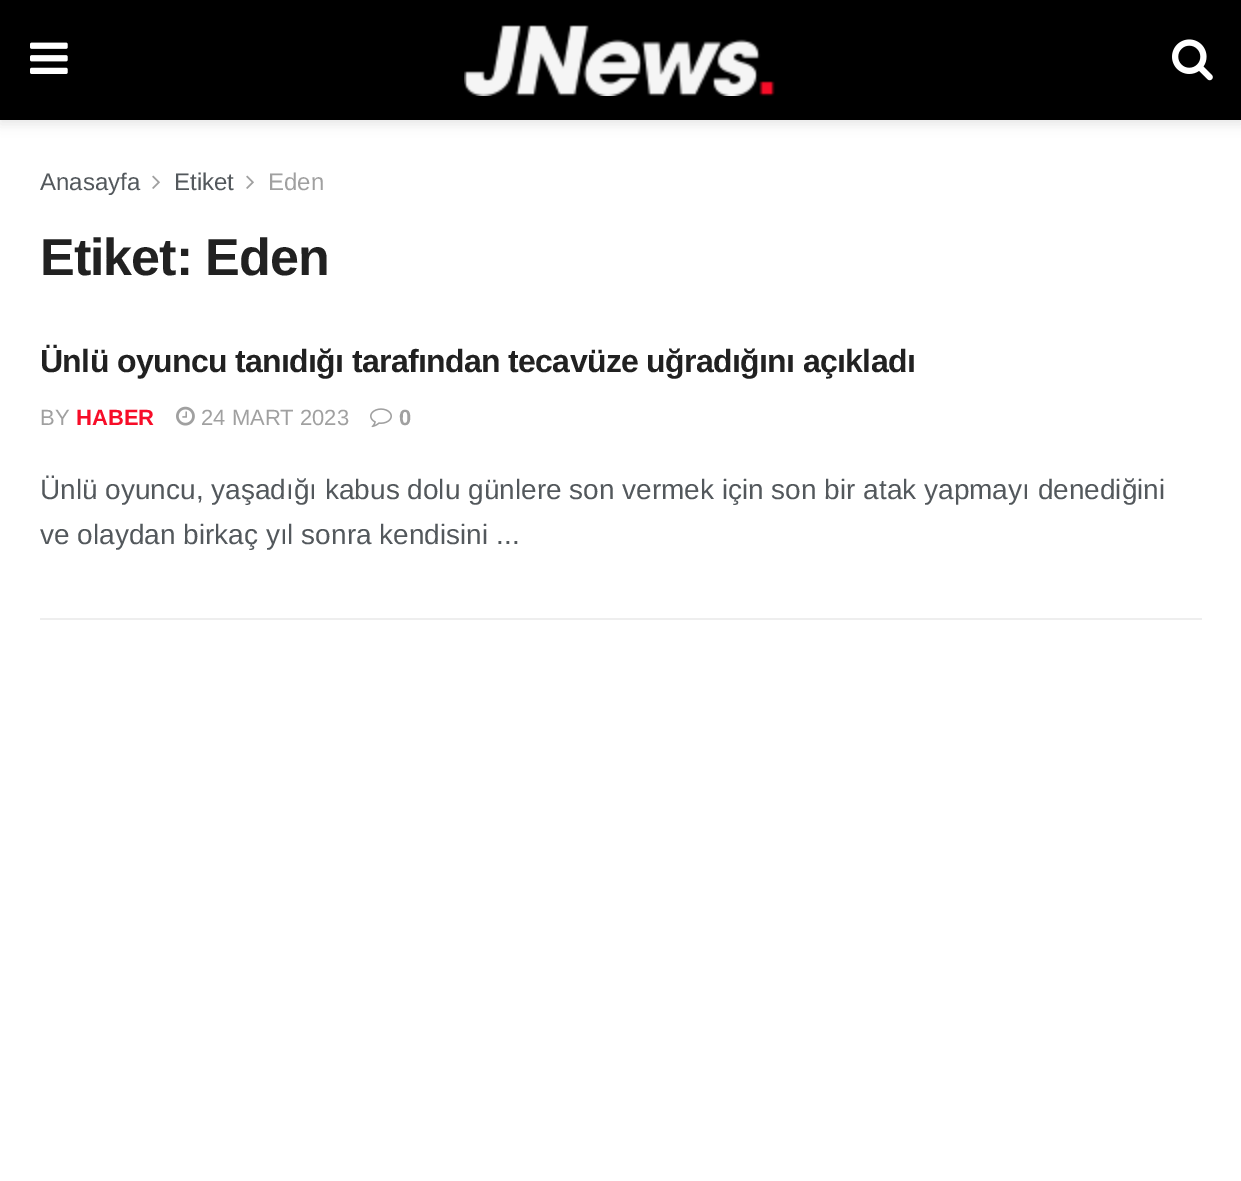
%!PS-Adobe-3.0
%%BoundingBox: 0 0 1241 1181
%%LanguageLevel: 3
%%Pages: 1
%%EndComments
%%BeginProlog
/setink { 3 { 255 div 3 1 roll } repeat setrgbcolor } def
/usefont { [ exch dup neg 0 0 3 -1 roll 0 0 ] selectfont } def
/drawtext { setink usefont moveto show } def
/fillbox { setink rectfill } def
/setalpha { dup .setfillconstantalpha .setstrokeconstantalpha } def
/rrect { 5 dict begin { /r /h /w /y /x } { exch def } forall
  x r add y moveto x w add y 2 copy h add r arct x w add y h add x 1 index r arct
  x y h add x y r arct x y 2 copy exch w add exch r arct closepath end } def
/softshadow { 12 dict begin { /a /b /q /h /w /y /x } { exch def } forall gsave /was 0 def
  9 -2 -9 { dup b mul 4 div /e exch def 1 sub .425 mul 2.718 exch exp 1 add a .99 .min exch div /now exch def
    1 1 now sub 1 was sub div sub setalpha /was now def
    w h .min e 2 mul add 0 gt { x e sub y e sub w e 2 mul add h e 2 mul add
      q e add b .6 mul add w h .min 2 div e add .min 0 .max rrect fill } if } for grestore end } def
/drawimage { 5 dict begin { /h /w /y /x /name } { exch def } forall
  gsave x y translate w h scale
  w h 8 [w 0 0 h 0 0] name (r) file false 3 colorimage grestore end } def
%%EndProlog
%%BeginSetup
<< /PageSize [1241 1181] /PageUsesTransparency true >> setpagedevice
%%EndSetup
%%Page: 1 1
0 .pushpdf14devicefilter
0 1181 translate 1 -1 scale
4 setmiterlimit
0 0 1241 1181 255 255 255 fillbox
0 0 0 setink
0 4 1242 120 0 6 0.1 softshadow
0 0 1241 120 0 0 0 fillbox
(assets/img1.rgb) 30 42 38 32 drawimage
(assets/img2.rgb) 464 25 311 71 drawimage
(assets/img3.rgb) 1172 39 41 42 drawimage
(Anasayfa) 40 190 /LiberationSans-Regular 24 83 88 92 drawtext
(assets/img4.rgb) 152 175 8 14 drawimage
(Etiket) 174 190 /LiberationSans-Regular 24 83 88 92 drawtext
(assets/img4.rgb) 246 175 8 14 drawimage
(Eden) 268 190 /LiberationSans-Regular 24 160 160 160 drawtext
/LiberationSans-Bold 52 usefont
33 33 33 setink
40 275 moveto -1 0 (Etiket: Eden) ashow
40 618 1162 2 238 238 238 fillbox
/LiberationSans-Bold 32 usefont
33 33 33 setink
40 372 moveto -0.65 0 (Ünlü oyuncu tanıdığı tarafından tecavüze uğradığını açıkladı) ashow
(BY) 40 425 /LiberationSans-Regular 22 160 160 160 drawtext
(HABER) 76 425 /LiberationSans-Bold 22 247 13 40 drawtext
(assets/img5.rgb) 176 406 19 20 drawimage
(24 MART 2023) 201 425 /LiberationSans-Regular 22 160 160 160 drawtext
(assets/img6.rgb) 370 408 22 20 drawimage
(0) 399 425 /LiberationSans-Bold 22 160 160 160 drawtext
(Ünlü oyuncu, yaşadığı kabus dolu günlere son vermek için son bir atak yapmayı denediğini) 40 499 /LiberationSans-Regular 28 83 88 92 drawtext
(ve olaydan birkaç yıl sonra kendisini ...) 40 544 /LiberationSans-Regular 28 83 88 92 drawtext
.poppdf14devicefilter showpage
%%EOF
